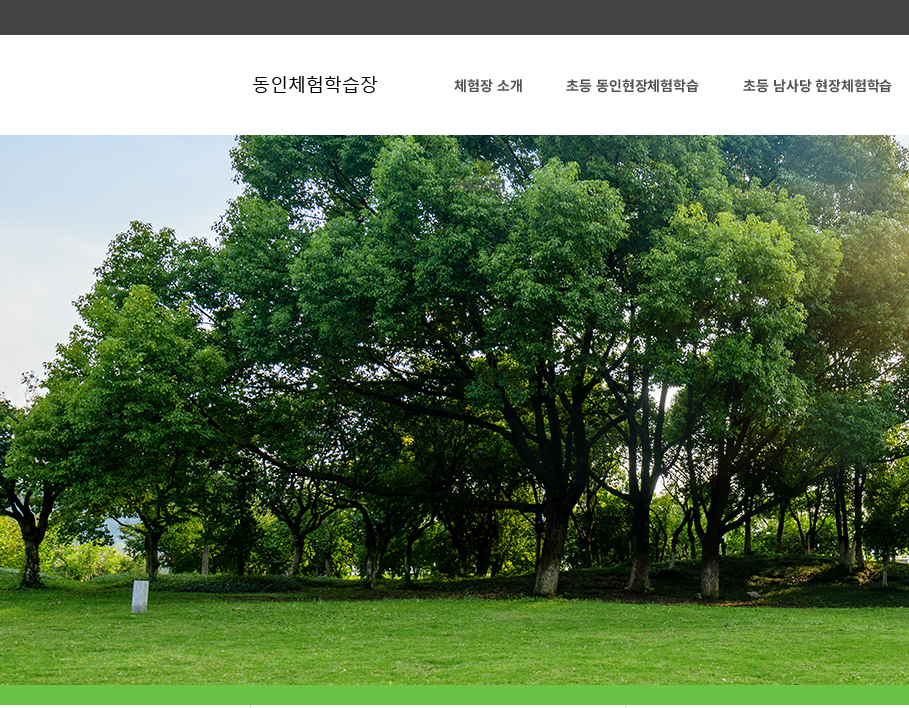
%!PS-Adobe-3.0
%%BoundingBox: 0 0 909 708
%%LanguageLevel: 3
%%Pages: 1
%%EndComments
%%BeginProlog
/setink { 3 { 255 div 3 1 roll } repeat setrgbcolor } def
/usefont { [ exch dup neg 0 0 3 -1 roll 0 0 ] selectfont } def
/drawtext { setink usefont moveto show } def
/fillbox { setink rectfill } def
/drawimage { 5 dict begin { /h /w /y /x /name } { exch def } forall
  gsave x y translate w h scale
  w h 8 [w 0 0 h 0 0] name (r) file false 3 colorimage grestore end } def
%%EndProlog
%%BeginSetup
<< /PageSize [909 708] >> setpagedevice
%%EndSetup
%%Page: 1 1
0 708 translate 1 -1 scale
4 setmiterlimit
0 0 909 708 255 255 255 fillbox
0 0 909 35 67 67 67 fillbox
(assets/img1.rgb) 253 76 125 17 drawimage
/NotoSansKR-Bold 14 usefont
83 83 83 setink
454 91 moveto 1 0 32 (체험장 소개) widthshow
566 91 moveto 1 0 32 (초등 동인현장체험학습) widthshow
743 91 moveto 1 0 32 (초등 남사당) widthshow
(현장체험학습) 815 91 /NotoSansKR-Bold 14 83 83 83 drawtext
(assets/img2.rgb) 0 135 909 550 drawimage
(커뮤니티) 454 191 /NotoSansKR-Bold 14 83 83 83 drawtext
(assets/img3.rgb) 0 685 909 23 drawimage
250 705 1 3 221 221 221 fillbox
625 705 1 3 221 221 221 fillbox
626 705 1 3 231 240 246 fillbox
showpage
%%EOF
